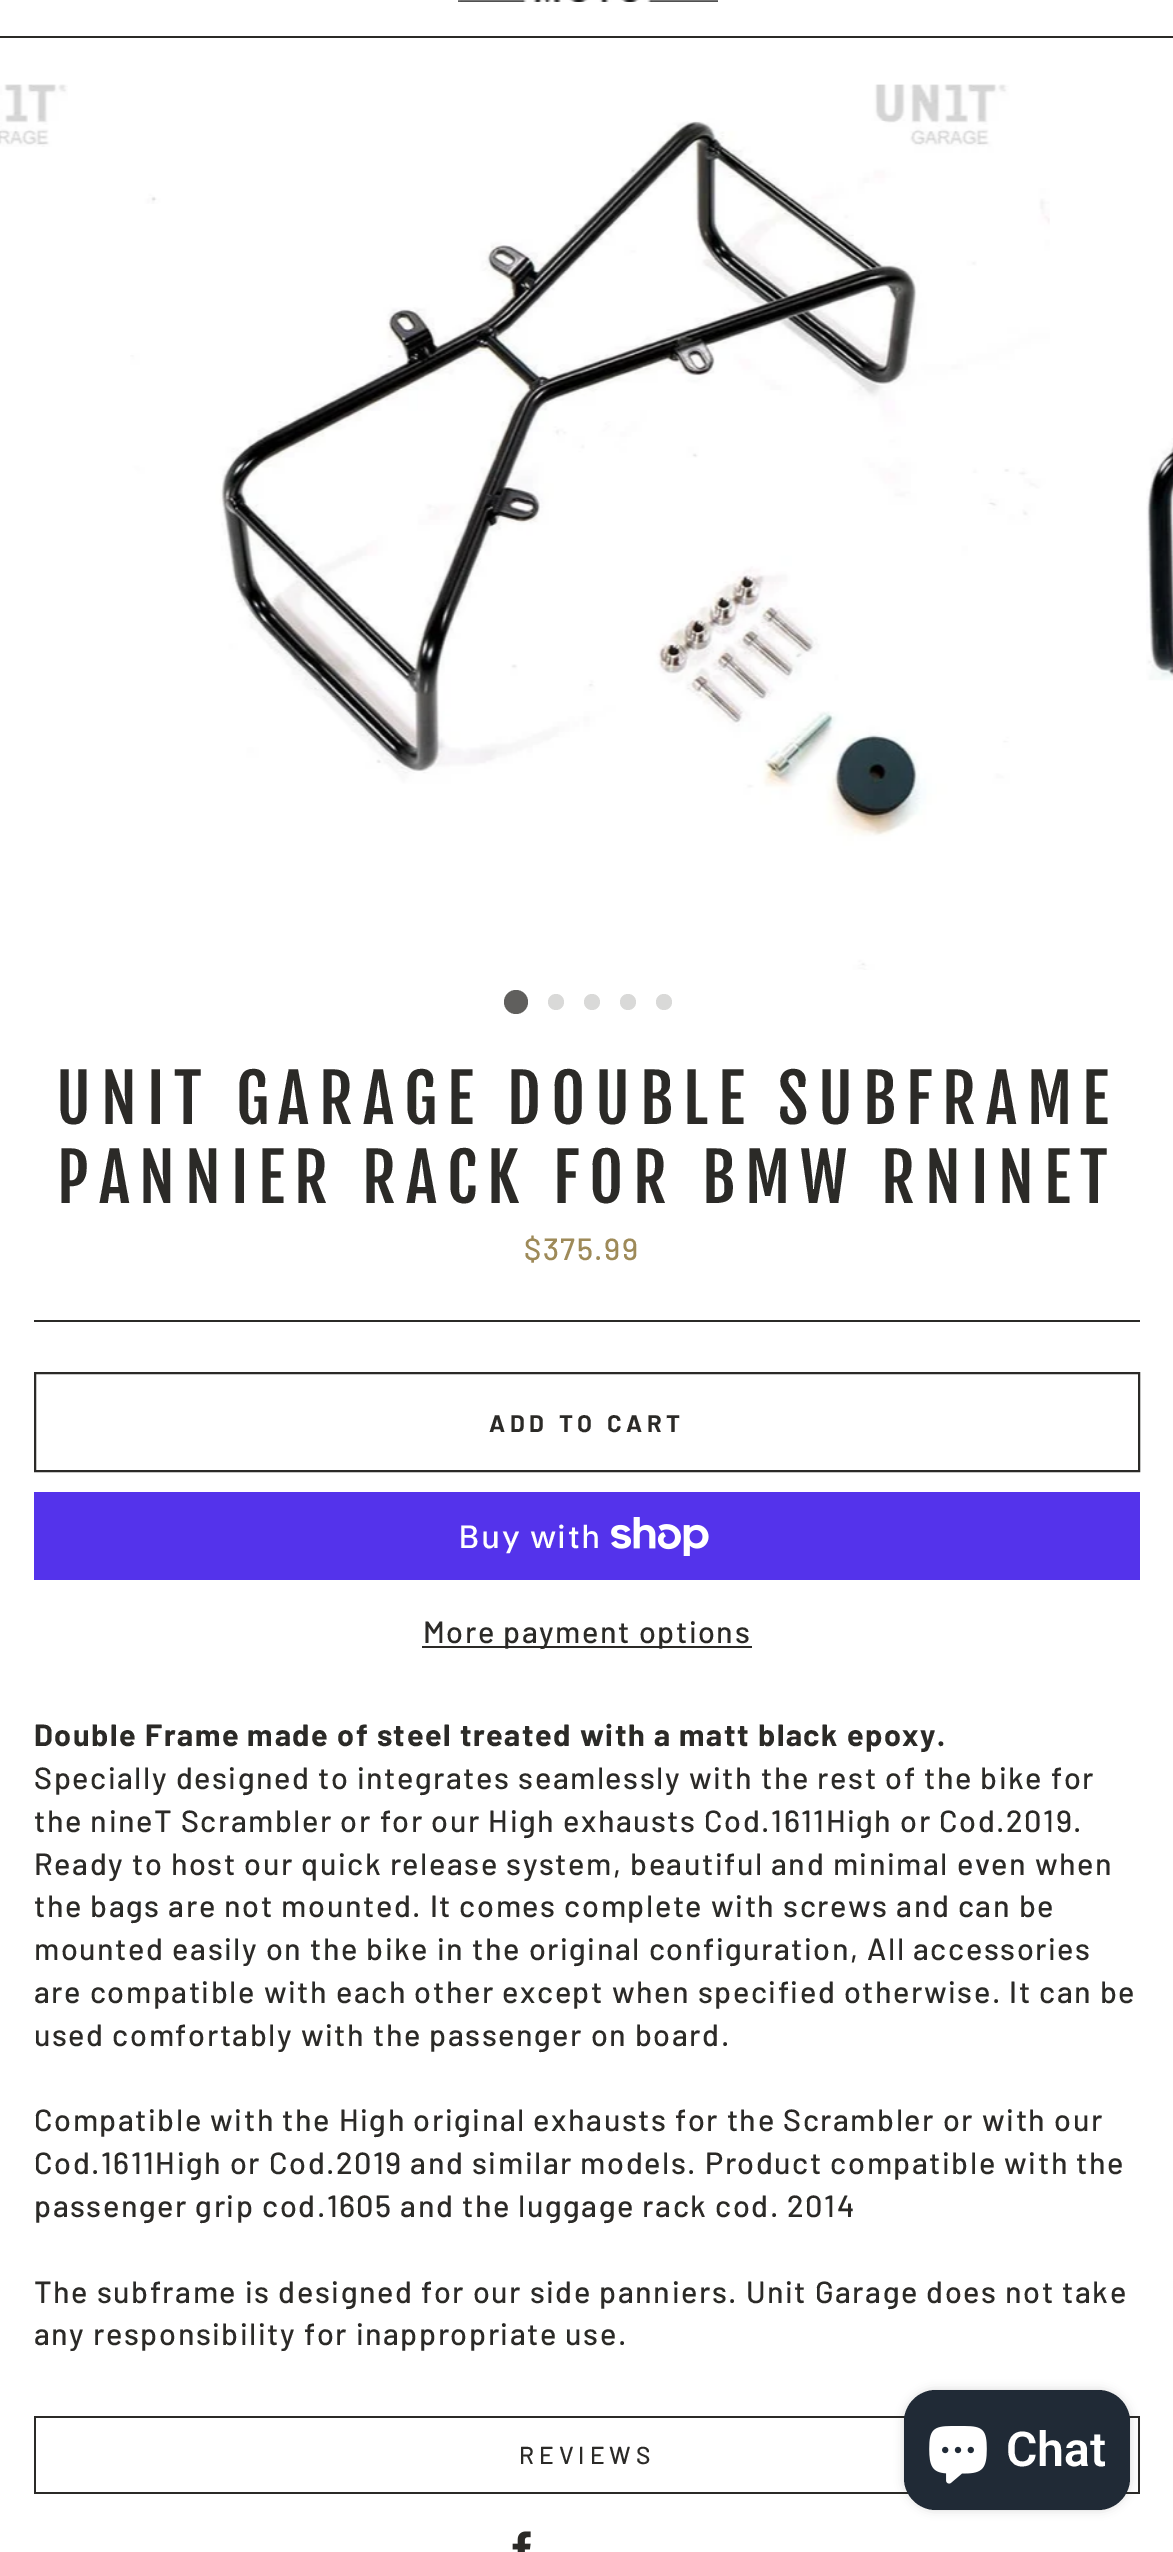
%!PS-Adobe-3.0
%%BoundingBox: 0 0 1173 2552
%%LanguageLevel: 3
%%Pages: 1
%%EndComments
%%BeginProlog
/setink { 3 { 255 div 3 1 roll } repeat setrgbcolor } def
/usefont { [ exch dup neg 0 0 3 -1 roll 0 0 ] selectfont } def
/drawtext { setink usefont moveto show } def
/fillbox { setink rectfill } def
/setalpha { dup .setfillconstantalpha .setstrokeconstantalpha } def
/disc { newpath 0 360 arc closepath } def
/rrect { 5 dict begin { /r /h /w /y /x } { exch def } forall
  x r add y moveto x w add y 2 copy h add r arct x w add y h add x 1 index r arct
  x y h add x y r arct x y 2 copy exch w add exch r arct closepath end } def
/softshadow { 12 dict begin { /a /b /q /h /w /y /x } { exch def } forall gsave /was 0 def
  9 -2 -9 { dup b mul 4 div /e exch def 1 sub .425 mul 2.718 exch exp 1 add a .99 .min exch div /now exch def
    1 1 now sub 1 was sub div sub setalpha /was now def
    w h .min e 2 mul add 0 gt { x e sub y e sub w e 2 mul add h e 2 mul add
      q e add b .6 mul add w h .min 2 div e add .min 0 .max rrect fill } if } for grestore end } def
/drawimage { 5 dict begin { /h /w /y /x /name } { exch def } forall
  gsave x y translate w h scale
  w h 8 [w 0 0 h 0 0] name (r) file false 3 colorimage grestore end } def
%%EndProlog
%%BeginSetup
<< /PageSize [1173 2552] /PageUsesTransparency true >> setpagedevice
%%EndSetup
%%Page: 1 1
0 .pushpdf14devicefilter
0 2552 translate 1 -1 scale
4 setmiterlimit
0 0 1173 2552 255 255 255 fillbox
0 36 1173 2 43 42 39 fillbox
(assets/img1.rgb) 458 0 260 2 drawimage
(assets/img2.rgb) 0 84 68 63 drawimage
(assets/img3.rgb) 130 84 920 886 drawimage
(assets/img4.rgb) 1146 438 27 243 drawimage
96 95 93 setink
516 1002 12 disc fill
217 217 216 setink
556 1002 8 disc fill
592 1002 8 disc fill
628 1002 8 disc fill
664 1002 8 disc fill
/FjallaOne-Regular 65.75 usefont
43 42 39 setink
56 1124 moveto 9.9 0 (UNIT GARAGE DOUBLE SUBFRAME) ashow
57 1203 moveto 9.9 0 (PANNIER RACK FOR BMW RNINET) ashow
/Barlow-Medium 30.6 usefont
158 138 89 setink
524 1260 moveto 1.53 0 ($375.99) ashow
34 1320 1106 2 43 42 39 fillbox
2 setlinewidth
35 1373 1104 98 rectstroke
/Barlow-Bold 24 usefont
489 1432 moveto 4.75 0 (ADD TO CART) ashow
34 1492 1106 88 84 51 235 fillbox
/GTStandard-Medium 32 usefont
255 255 255 setink
458 1548 moveto 1.53 0 (Buy with) ashow
(assets/img5.rgb) 611 1517 98 39 drawimage
422 1646 330 2 43 42 39 fillbox
/Barlow-Medium 30.6 usefont
423 1643 moveto 1.53 0 (More payment options) ashow
/Barlow-Bold 30.6 usefont
34 1746 moveto 1.53 0 (Double Frame made of steel treated with a matt black epoxy.) ashow
/Barlow-Medium 30.6 usefont
34 1789 moveto 1.53 0 (Specially designed to integrates seamlessly with the rest of the bike for) ashow
34 1832 moveto 1.53 0 (the nineT Scrambler or for our High exhausts Cod.1611High or Cod.2019.) ashow
34 1875 moveto 1.53 0 (Ready to host our quick release system, beautiful and minimal even when) ashow
34 1917 moveto 1.53 0 (the bags are not mounted. It comes complete with screws and can be) ashow
34 1960 moveto 1.53 0 (mounted easily on the bike in the original configuration, All accessories) ashow
34 2003 moveto 1.53 0 (are compatible with each other except when specified otherwise. It can be) ashow
34 2046 moveto 1.53 0 (used comfortably with the passenger on board.) ashow
34 2131 moveto 1.53 0 (Compatible with the High original exhausts for the Scrambler or with our) ashow
34 2174 moveto 1.53 0 (Cod.1611High or Cod.2019 and similar models. Product compatible with the) ashow
34 2217 moveto 1.53 0 (passenger grip cod.1605 and the luggage rack cod. 2014) ashow
34 2303 moveto 1.53 0 (The subframe is designed for our side panniers. Unit Garage does not take) ashow
34 2345 moveto 1.53 0 (any responsibility for inappropriate use.) ashow
34 2492 1106 2 43 42 39 fillbox
34 2416 1106 2 43 42 39 fillbox
1138 2416 2 76 43 42 39 fillbox
34 2416 2 76 43 42 39 fillbox
/Barlow-Medium 24.5 usefont
519 2464 moveto 5 0 (REVIEWS) ashow
(assets/img6.rgb) 512 2531 19 21 drawimage
0 0 0 setink
904 2390 226 120 32 5 0.15 softshadow
32 42 54 setink
904 2390 226 120 32 rrect fill
(assets/img7.rgb) 929 2426 58 58 drawimage
(Chat) 1006 2466 /Roboto-SemiBold 48 255 255 255 drawtext
.poppdf14devicefilter showpage
%%EOF
